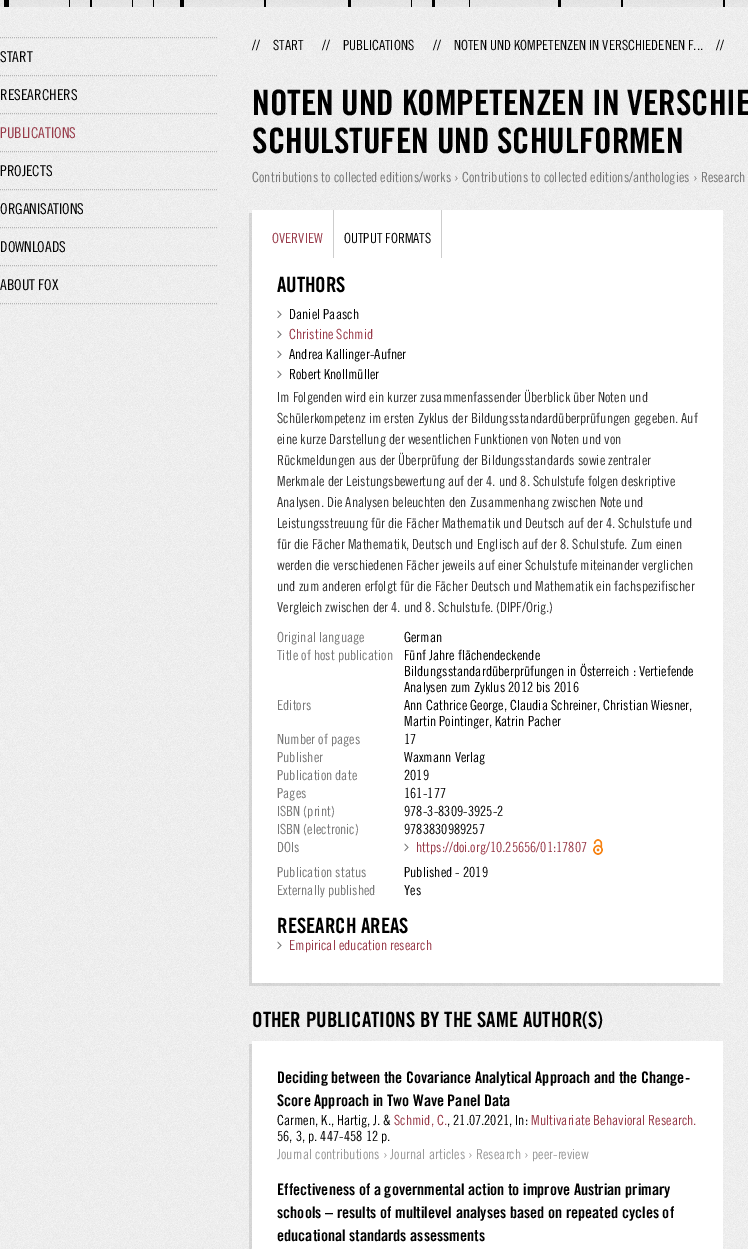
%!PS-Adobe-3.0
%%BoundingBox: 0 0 748 1249
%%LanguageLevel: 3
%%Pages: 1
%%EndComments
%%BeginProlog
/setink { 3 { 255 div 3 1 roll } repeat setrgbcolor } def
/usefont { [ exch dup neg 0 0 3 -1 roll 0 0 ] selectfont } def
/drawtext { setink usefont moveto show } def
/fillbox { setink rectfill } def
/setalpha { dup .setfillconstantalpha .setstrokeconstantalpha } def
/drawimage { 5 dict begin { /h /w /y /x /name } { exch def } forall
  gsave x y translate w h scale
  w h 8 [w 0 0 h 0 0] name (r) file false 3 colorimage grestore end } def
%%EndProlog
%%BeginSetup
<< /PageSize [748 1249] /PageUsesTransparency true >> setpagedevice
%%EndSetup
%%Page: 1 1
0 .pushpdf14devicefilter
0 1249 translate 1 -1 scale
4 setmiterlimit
0 0 748 1249 255 255 255 fillbox
(assets/img1.rgb) 0 7 748 1242 drawimage
(assets/img2.rgb) 0 0 748 7 drawimage
181 181 181 setink
[1 1] 0 setdash
0 303.5 moveto 217 303.5 lineto stroke
0 37.5 moveto 217 37.5 lineto stroke
(START) 0 62 /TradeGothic-Regular 15 0 0 0 drawtext
181 181 181 setink
0 75.5 moveto 217 75.5 lineto stroke
(RESEARCHERS) 0 100 /TradeGothic-Regular 15 0 0 0 drawtext
181 181 181 setink
0 113.5 moveto 217 113.5 lineto stroke
(PUBLICATIONS) 0 138 /TradeGothic-Regular 15 151 57 72 drawtext
181 181 181 setink
0 151.5 moveto 217 151.5 lineto stroke
(PROJECTS) 0 176 /TradeGothic-Regular 15 0 0 0 drawtext
181 181 181 setink
0 189.5 moveto 217 189.5 lineto stroke
(ORGANISATIONS) 0 214 /TradeGothic-Regular 15 0 0 0 drawtext
181 181 181 setink
0 227.5 moveto 217 227.5 lineto stroke
(DOWNLOADS) 0 252 /TradeGothic-Regular 15 0 0 0 drawtext
181 181 181 setink
0 265.5 moveto 217 265.5 lineto stroke
(ABOUT FOX) 0 290 /TradeGothic-Regular 15 0 0 0 drawtext
(//) 252 50 /TradeGothic-Regular 14 0 0 0 drawtext
(START) 273 50 /TradeGothic-Regular 14 0 0 0 drawtext
(//) 322 50 /TradeGothic-Regular 14 0 0 0 drawtext
(PUBLICATIONS) 343 50 /TradeGothic-Regular 14 0 0 0 drawtext
(//) 433 50 /TradeGothic-Regular 14 0 0 0 drawtext
(NOTEN UND KOMPETENZEN IN VERSCHIEDENEN F...) 454 50 /TradeGothic-Regular 14 0 0 0 drawtext
(//) 716 50 /TradeGothic-Regular 14 0 0 0 drawtext
(NOTEN UND KOMPETENZEN IN VERSCHIE) 252 115 /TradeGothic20-Bold 35 0 0 0 drawtext
(SCHULSTUFEN UND SCHULFORMEN) 252 153 /TradeGothic20-Bold 35 0 0 0 drawtext
(Contributions to collected editions/works › Contributions to collected editions/anthologies › Research) 252 182 /TradeGothic-Regular 14 119 119 119 drawtext
0.1 setalpha
0 0 0 setink
249 213 moveto 249 986 lineto 720 986 lineto 720 983 lineto 252 983 lineto 252 213 lineto closepath fill
1 setalpha
252 210 471 773 255 255 255 fillbox
333 210 1 48 205 205 205 fillbox
(OVERVIEW) 272 243 /TradeGothic-Regular 14 151 57 72 drawtext
441 210 1 48 205 205 205 fillbox
(OUTPUT FORMATS) 344 243 /TradeGothic-Regular 14 0 0 0 drawtext
(AUTHORS) 277 292 /TradeGothic20-Bold 21 0 0 0 drawtext
(assets/img3.rgb) 277 310 5 9 drawimage
(Daniel Paasch) 289 319 /TradeGothic-Regular 14 0 0 0 drawtext
(assets/img3.rgb) 277 330 5 9 drawimage
(Christine Schmid) 289 339 /TradeGothic-Regular 14 151 57 72 drawtext
(assets/img3.rgb) 277 350 5 9 drawimage
(Andrea Kallinger-Aufner) 289 359 /TradeGothic-Regular 14 0 0 0 drawtext
(assets/img3.rgb) 277 370 5 9 drawimage
(Robert Knollmüller) 289 379 /TradeGothic-Regular 14 0 0 0 drawtext
(Im Folgenden wird ein kurzer zusammenfassender Überblick über Noten und) 277 402 /TradeGothic-Regular 14 51 51 51 drawtext
(Schülerkompetenz im ersten Zyklus der Bildungsstandardüberprüfungen gegeben. Auf) 277 423 /TradeGothic-Regular 14 51 51 51 drawtext
(eine kurze Darstellung der wesentlichen Funktionen von Noten und von) 277 444 /TradeGothic-Regular 14 51 51 51 drawtext
(Rückmeldungen aus der Überprüfung der Bildungsstandards sowie zentraler) 277 465 /TradeGothic-Regular 14 51 51 51 drawtext
(Merkmale der Leistungsbewertung auf der 4. und 8. Schulstufe folgen deskriptive) 277 486 /TradeGothic-Regular 14 51 51 51 drawtext
(Analysen. Die Analysen beleuchten den Zusammenhang zwischen Note und) 277 507 /TradeGothic-Regular 14 51 51 51 drawtext
(Leistungsstreuung für die Fächer Mathematik und Deutsch auf der 4. Schulstufe und) 277 528 /TradeGothic-Regular 14 51 51 51 drawtext
(für die Fächer Mathematik, Deutsch und Englisch auf der 8. Schulstufe. Zum einen) 277 549 /TradeGothic-Regular 14 51 51 51 drawtext
(werden die verschiedenen Fächer jeweils auf einer Schulstufe miteinander verglichen) 277 570 /TradeGothic-Regular 14 51 51 51 drawtext
(und zum anderen erfolgt für die Fächer Deutsch und Mathematik ein fachspezifischer) 277 591 /TradeGothic-Regular 14 51 51 51 drawtext
(Vergleich zwischen der 4. und 8. Schulstufe. \(DIPF/Orig.\)) 277 612 /TradeGothic-Regular 14 51 51 51 drawtext
(Original language) 277 642 /TradeGothic-Regular 14 119 119 119 drawtext
(German) 404 642 /TradeGothic-Regular 14 0 0 0 drawtext
(Title of host publication) 277 660 /TradeGothic-Regular 14 119 119 119 drawtext
(Fünf Jahre flächendeckende) 404 660 /TradeGothic-Regular 14 0 0 0 drawtext
(Bildungsstandardüberprüfungen in Österreich : Vertiefende) 404 676 /TradeGothic-Regular 14 0 0 0 drawtext
(Analysen zum Zyklus 2012 bis 2016) 404 692 /TradeGothic-Regular 14 0 0 0 drawtext
(Editors) 277 710 /TradeGothic-Regular 14 119 119 119 drawtext
(Ann Cathrice George, Claudia Schreiner, Christian Wiesner,) 404 710 /TradeGothic-Regular 14 0 0 0 drawtext
(Martin Pointinger, Katrin Pacher) 404 726 /TradeGothic-Regular 14 0 0 0 drawtext
(Number of pages) 277 744 /TradeGothic-Regular 14 119 119 119 drawtext
(17) 404 744 /TradeGothic-Regular 14 0 0 0 drawtext
(Publisher) 277 762 /TradeGothic-Regular 14 119 119 119 drawtext
(Waxmann Verlag) 404 762 /TradeGothic-Regular 14 0 0 0 drawtext
(Publication date) 277 780 /TradeGothic-Regular 14 119 119 119 drawtext
(2019) 404 780 /TradeGothic-Regular 14 0 0 0 drawtext
(Pages) 277 798 /TradeGothic-Regular 14 119 119 119 drawtext
(161-177) 404 798 /TradeGothic-Regular 14 0 0 0 drawtext
(ISBN \(print\)) 277 816 /TradeGothic-Regular 14 119 119 119 drawtext
(978-3-8309-3925-2) 404 816 /TradeGothic-Regular 14 0 0 0 drawtext
(ISBN \(electronic\)) 277 834 /TradeGothic-Regular 14 119 119 119 drawtext
(9783830989257) 404 834 /TradeGothic-Regular 14 0 0 0 drawtext
(DOIs) 277 852 /TradeGothic-Regular 14 119 119 119 drawtext
(assets/img3.rgb) 404 843 5 9 drawimage
(https://doi.org/10.25656/01:17807) 416 852 /TradeGothic-Regular 14 151 57 72 drawtext
(assets/img4.rgb) 593 839 10 16 drawimage
(Publication status) 277 877 /TradeGothic-Regular 14 119 119 119 drawtext
(Published - 2019) 404 877 /TradeGothic-Regular 14 0 0 0 drawtext
(Externally published) 277 895 /TradeGothic-Regular 14 119 119 119 drawtext
(Yes) 404 895 /TradeGothic-Regular 14 0 0 0 drawtext
(RESEARCH AREAS) 277 933 /TradeGothic20-Bold 21 0 0 0 drawtext
(assets/img3.rgb) 277 941 5 9 drawimage
(Empirical education research) 289 950 /TradeGothic-Regular 14 151 57 72 drawtext
(OTHER PUBLICATIONS BY THE SAME AUTHOR\(S\)) 252 1027 /TradeGothic20-Bold 21 0 0 0 drawtext
0.1 setalpha
249 1044 moveto 249 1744 lineto 720 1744 lineto 720 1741 lineto 252 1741 lineto 252 1044 lineto closepath fill
1 setalpha
252 1041 471 208 255 255 255 fillbox
(Deciding between the Covariance Analytical Approach and the Change-) 277 1083 /TradeGothic20-Bold 16 0 0 0 drawtext
(Score Approach in Two Wave Panel Data) 277 1106 /TradeGothic20-Bold 16 0 0 0 drawtext
(Carmen, K., Hartig, J. &) 277 1125 /TradeGothic-Regular 14 0 0 0 drawtext
(Schmid, C.) 394 1125 /TradeGothic-Regular 14 151 57 72 drawtext
(, 21.07.2021, In:) 447 1125 /TradeGothic-Regular 14 0 0 0 drawtext
(Multivariate Behavioral Research.) 531 1125 /TradeGothic-Regular 14 151 57 72 drawtext
(56, 3, p. 447-458 12 p.) 277 1141 /TradeGothic-Regular 14 0 0 0 drawtext
(Journal contributions › Journal articles › Research › peer-review) 277 1159 /TradeGothic-Regular 14 153 153 153 drawtext
(Effectiveness of a governmental action to improve Austrian primary) 277 1195 /TradeGothic20-Bold 16 0 0 0 drawtext
(schools – results of multilevel analyses based on repeated cycles of) 277 1218 /TradeGothic20-Bold 16 0 0 0 drawtext
(educational standards assessments) 277 1241 /TradeGothic20-Bold 16 0 0 0 drawtext
.poppdf14devicefilter showpage
%%EOF
